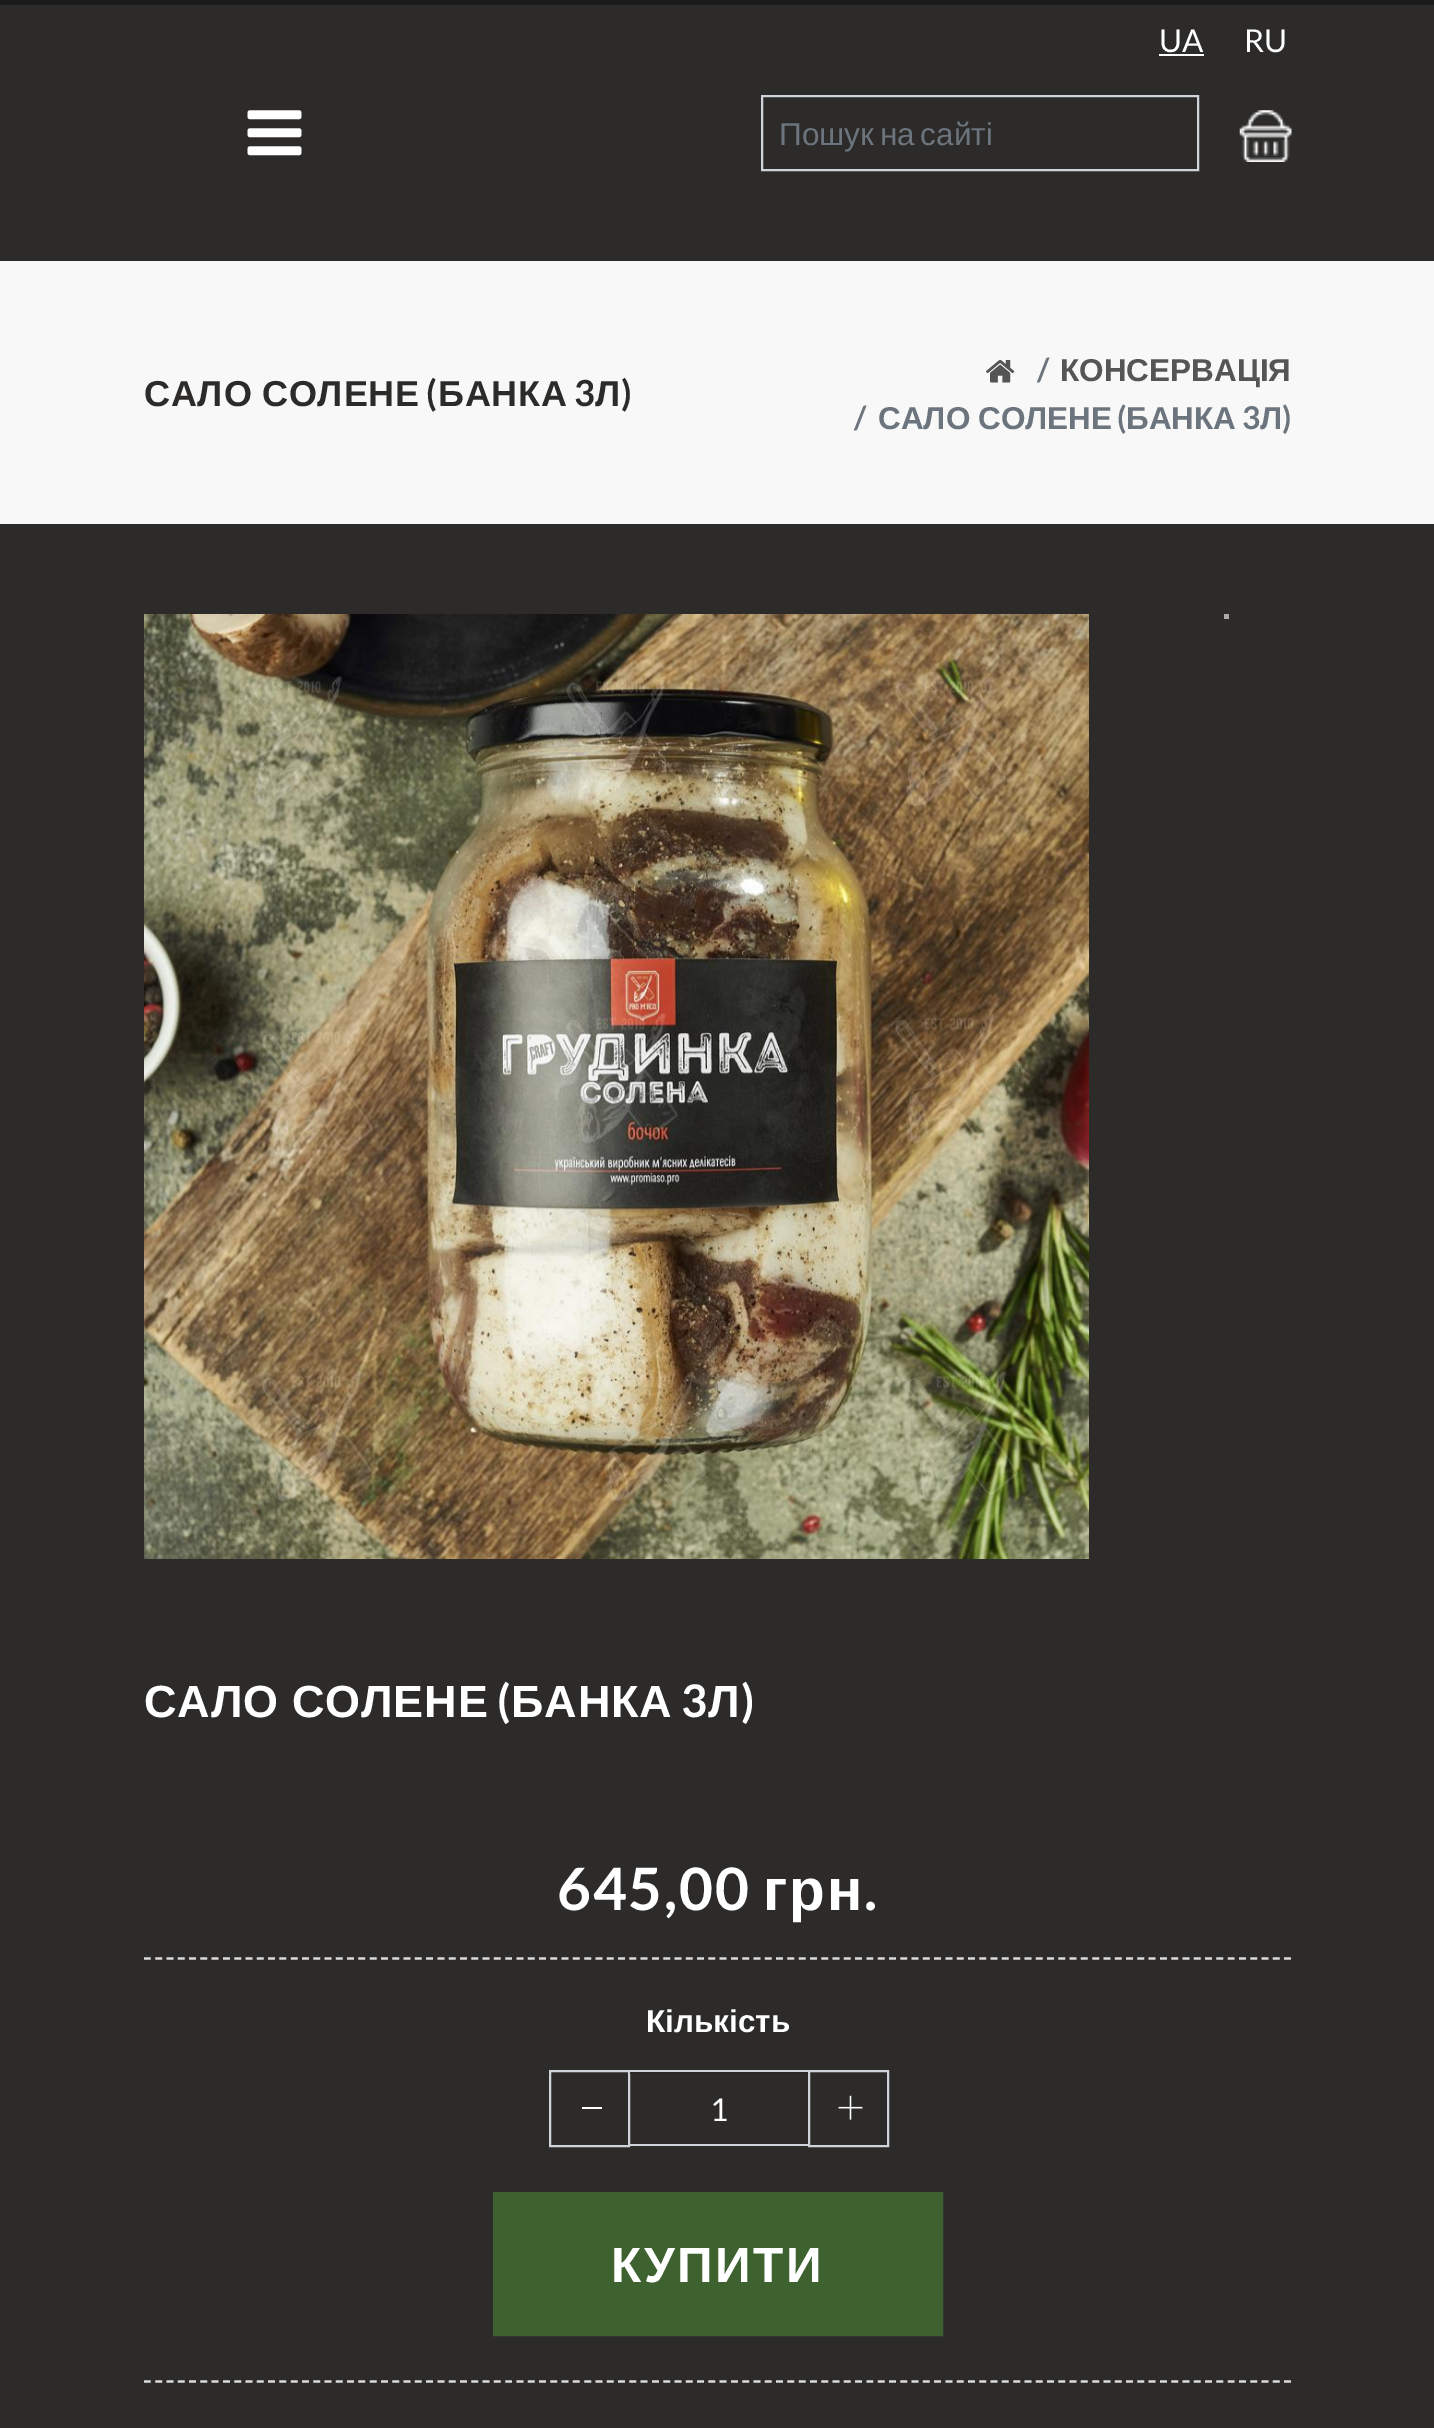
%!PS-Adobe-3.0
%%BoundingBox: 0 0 1434 2428
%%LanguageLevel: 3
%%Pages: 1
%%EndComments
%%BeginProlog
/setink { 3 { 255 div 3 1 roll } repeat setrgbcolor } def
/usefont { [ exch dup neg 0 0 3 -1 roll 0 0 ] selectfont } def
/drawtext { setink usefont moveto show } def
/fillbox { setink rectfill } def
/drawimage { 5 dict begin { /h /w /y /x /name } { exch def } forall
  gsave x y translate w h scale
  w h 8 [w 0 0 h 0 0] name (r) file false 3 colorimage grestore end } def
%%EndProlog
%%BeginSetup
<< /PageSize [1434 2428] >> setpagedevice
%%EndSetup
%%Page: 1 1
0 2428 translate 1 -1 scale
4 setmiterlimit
0 0 1434 2428 44 43 42 fillbox
0 0 1434 5 27 26 26 fillbox
(UA) 1159 52 /Lato-Regular 31.5 255 255 255 drawtext
1159 54 45 2 255 255 255 fillbox
(RU) 1244 52 /Lato-Regular 31.5 255 255 255 drawtext
(assets/img1.rgb) 247 110 55 46 drawimage
763 97 434 2 41 40 39 fillbox
206 212 218 setink
2 setlinewidth
762 96 436 74 rectstroke
/LiberationSans-Regular 31.5 usefont
108 117 125 setink
779 145 moveto -3 0 32 (Пошук на сайті) widthshow
(assets/img2.rgb) 1239 110 53 52 drawimage
0 261 1434 263 248 248 248 fillbox
/LiberationSans-Bold 36 usefont
44 43 42 setink
144 406 moveto -1 0 32 0.75 0 (САЛО СОЛЕНЕ) awidthshow
/Lato-Bold 36 usefont
426 406 moveto 0.75 0 (\() ashow
/LiberationSans-Bold 36 usefont
438 406 moveto 0.75 0 (БАНКА) ashow
/Lato-Bold 36 usefont
574 406 moveto 0.75 0 (3) ashow
/LiberationSans-Bold 36 usefont
595 406 moveto 0.75 0 (Л) ashow
/Lato-Bold 36 usefont
621 406 moveto 0.75 0 (\)) ashow
(assets/img3.rgb) 986 360 29 23 drawimage
(/) 1037 381 /Lato-Bold 31.5 108 117 125 drawtext
(КОНСЕРВАЦІЯ) 1060 381 /LiberationSans-Bold 31.5 85 85 85 drawtext
(/) 854 429 /Lato-Bold 31.5 108 117 125 drawtext
/LiberationSans-Bold 31.5 usefont
878 429 moveto -1 0 32 (САЛО СОЛЕНЕ) widthshow
(\() 1117 429 /Lato-Bold 31.5 108 117 125 drawtext
(БАНКА) 1126 429 /LiberationSans-Bold 31.5 108 117 125 drawtext
(3) 1242 429 /Lato-Bold 31.5 108 117 125 drawtext
(Л) 1260 429 /LiberationSans-Bold 31.5 108 117 125 drawtext
(\)) 1282 429 /Lato-Bold 31.5 108 117 125 drawtext
(assets/img4.rgb) 144 614 945 945 drawimage
1224 614 5 5 170 170 170 fillbox
/LiberationSans-Bold 45 usefont
255 255 255 setink
144 1717 moveto -1 0 32 0.9 0 (САЛО СОЛЕНЕ) awidthshow
/Lato-Bold 45 usefont
497 1717 moveto 0.9 0 (\() ashow
/LiberationSans-Bold 45 usefont
511 1717 moveto 0.9 0 (БАНКА) ashow
/Lato-Bold 45 usefont
681 1717 moveto 0.9 0 (3) ashow
/LiberationSans-Bold 45 usefont
708 1717 moveto 0.9 0 (Л) ashow
/Lato-Bold 45 usefont
741 1717 moveto 0.9 0 (\)) ashow
/Lato-Bold 58.5 usefont
557 1910 moveto 1.75 0 (645,00) ashow
/LiberationSans-Bold 58.5 usefont
763 1910 moveto 1.75 0 (грн) ashow
/Lato-Bold 58.5 usefont
864 1910 moveto 1.75 0 (.) ashow
221 221 221 setink
2.2 setlinewidth
[6.75 4.54] 0 setdash
144 1958.5 moveto 1291.5 1958.5 lineto stroke
(Кількість) 646 2032 /LiberationSans-Bold 31.5 255 255 255 drawtext
206 212 218 setink
2 setlinewidth
[] 0 setdash
550 2071 79 75 rectstroke
582 2107 20 2 255 255 255 fillbox
630 2072 178 2 41 40 39 fillbox
628 2070 180 2 206 212 218 fillbox
628 2144 180 2 206 212 218 fillbox
(1) 710 2121 /Lato-Regular 31.5 255 255 255 drawtext
206 212 218 setink
809 2071 79 75 rectstroke
(assets/img5.rgb) 838 2095 25 25 drawimage
gsave 498 2197 moveto 938 2197 lineto 938 2331 lineto 498 2331 lineto closepath clip newpath
<< /ShadingType 2 /ColorSpace /DeviceRGB /Coords [1185 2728 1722 1799] /Extend [true true] /Function << /FunctionType 3 /Domain [0 1] /Functions [<< /FunctionType 2 /Domain [0 1] /C0 [0.239 0.384 0.184] /C1 [0.239 0.384 0.184] /N 1 >> << /FunctionType 2 /Domain [0 1] /C0 [0.173 0.169 0.165] /C1 [0.173 0.169 0.165] /N 1 >>] /Bounds [0.5] /Encode [0 1 0 1] >> >> shfill grestore
61 98 47 setink
5 setlinewidth
495.5 2194.5 445 139 rectstroke
/LiberationSans-Bold 49.5 usefont
255 255 255 setink
611 2282 moveto 2.5 0 (КУПИТИ) ashow
221 221 221 setink
2.2 setlinewidth
[6.75 4.54] 0 setdash
144 2381.5 moveto 1291.5 2381.5 lineto stroke
showpage
%%EOF
